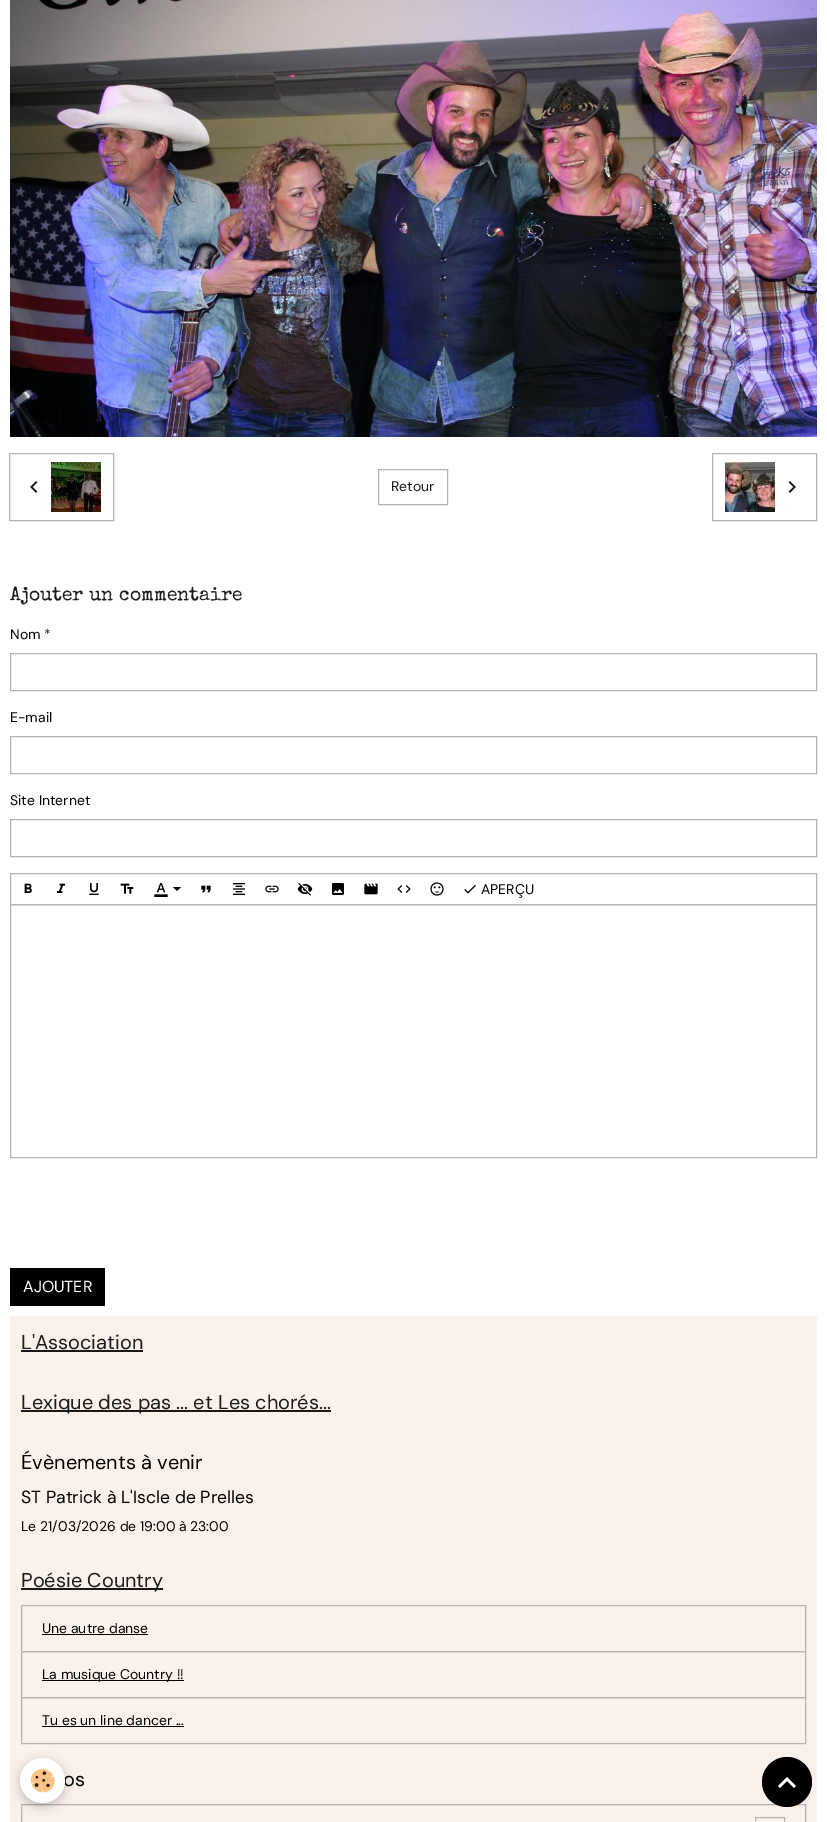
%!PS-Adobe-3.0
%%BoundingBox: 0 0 827 1822
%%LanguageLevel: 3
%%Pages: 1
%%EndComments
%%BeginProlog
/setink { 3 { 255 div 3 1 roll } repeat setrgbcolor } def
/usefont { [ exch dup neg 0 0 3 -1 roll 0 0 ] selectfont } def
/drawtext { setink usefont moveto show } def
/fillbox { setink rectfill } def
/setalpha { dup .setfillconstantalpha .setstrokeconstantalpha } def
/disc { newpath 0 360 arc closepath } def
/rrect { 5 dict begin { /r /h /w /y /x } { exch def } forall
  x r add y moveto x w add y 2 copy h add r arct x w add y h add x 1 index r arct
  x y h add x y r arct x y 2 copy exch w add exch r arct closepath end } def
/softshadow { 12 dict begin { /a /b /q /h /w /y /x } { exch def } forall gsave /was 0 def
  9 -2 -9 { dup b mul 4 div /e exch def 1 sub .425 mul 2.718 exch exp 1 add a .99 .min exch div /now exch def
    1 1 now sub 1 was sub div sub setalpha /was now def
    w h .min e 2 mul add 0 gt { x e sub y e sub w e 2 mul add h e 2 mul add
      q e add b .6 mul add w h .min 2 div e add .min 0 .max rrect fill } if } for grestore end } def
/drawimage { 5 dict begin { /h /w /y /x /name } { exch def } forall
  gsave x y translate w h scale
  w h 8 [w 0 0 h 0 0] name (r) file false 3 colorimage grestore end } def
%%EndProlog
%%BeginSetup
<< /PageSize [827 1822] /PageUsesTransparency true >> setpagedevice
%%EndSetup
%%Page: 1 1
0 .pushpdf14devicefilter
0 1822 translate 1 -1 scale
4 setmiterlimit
0 0 827 1822 255 255 255 fillbox
(assets/img1.rgb) 10 0 807 437 drawimage
179 179 179 setink
9.5 453.5 104 67 rectstroke
(assets/img2.rgb) 30 481 8 12 drawimage
(assets/img3.rgb) 51 462 50 50 drawimage
378.5 469.5 69 35 rectstroke
(Retour) 391 491 /DMSans-Regular 14 26 26 26 drawtext
179 179 179 setink
712.5 453.5 104 67 rectstroke
(assets/img4.rgb) 725 462 50 50 drawimage
(assets/img5.rgb) 788 481 8 12 drawimage
(Ajouter un commentaire) 10 600 /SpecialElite-Regular 19.25 26 26 26 drawtext
(Nom) 10 639 /DMSans-Regular 14 0 0 0 drawtext
(*) 44 639 /DMSans-Regular 14 51 51 51 drawtext
179 179 179 setink
10.5 653.5 806 37 rectstroke
(E-mail) 10 722 /DMSans-Regular 14 0 0 0 drawtext
179 179 179 setink
10.5 736.5 806 37 rectstroke
(Site Internet) 10 805 /DMSans-Regular 14 0 0 0 drawtext
179 179 179 setink
10.5 819.5 806 37 rectstroke
10.5 873.5 806 31 rectstroke
(assets/img6.rgb) 24 883 8 10 drawimage
(assets/img7.rgb) 57 883 8 10 drawimage
(assets/img8.rgb) 89 883 10 12 drawimage
(assets/img9.rgb) 120 883 14 11 drawimage
(assets/img10.rgb) 154 883 14 14 drawimage
0 0 0 setink
173 887 moveto 181 887 lineto 177 891 lineto closepath fill
(assets/img11.rgb) 201 885 10 8 drawimage
(assets/img12.rgb) 233 883 12 12 drawimage
(assets/img13.rgb) 265 885 14 8 drawimage
(assets/img14.rgb) 297 883 16 13 drawimage
(assets/img15.rgb) 332 883 12 12 drawimage
(assets/img16.rgb) 364 883 14 12 drawimage
(assets/img17.rgb) 397 885 14 8 drawimage
(assets/img18.rgb) 430 882 14 14 drawimage
(assets/img19.rgb) 464 884 12 10 drawimage
(APERÇU) 481 894 /DMSans-Regular 14 0 0 0 drawtext
179 179 179 setink
10.5 904.5 806 253 rectstroke
10 1268 95 38 0 0 0 fillbox
(AJOUTER) 23 1292 /DMSans-Regular 16 255 255 255 drawtext
10 1316 807 506 251 241 235 fillbox
(L'Association) 21 1349 /DMSans-Regular 20 26 26 26 drawtext
21 1350 122 2 26 25 24 fillbox
21 1410 310 2 26 25 24 fillbox
(Lexique des pas ... et Les chorés...) 21 1409 /DMSans-Regular 20 26 26 26 drawtext
(Évènements à venir) 21 1469 /DMSans-Regular 20 0 0 0 drawtext
(ST Patrick à L'Iscle de Prelles) 21 1503 /DMSans-Regular 17.6 0 0 0 drawtext
(Le 21/03/2026 de 19:00 à 23:00) 21 1531 /DMSans-Regular 14 0 0 0 drawtext
21 1588 142 2 26 25 24 fillbox
(Poésie Country) 21 1587 /DMSans-Regular 20 26 26 26 drawtext
179 179 179 setink
21.5 1605.5 784 46 rectstroke
(Une autre danse) 42 1633 /DMSans-Regular 14 0 0 0 drawtext
42 1634 106 1 0 0 0 fillbox
179 179 179 setink
21.5 1651.5 784 46 rectstroke
42 1680 142 1 0 0 0 fillbox
(La musique Country !!) 42 1679 /DMSans-Regular 14 0 0 0 drawtext
179 179 179 setink
21.5 1697.5 784 46 rectstroke
(Tu es un line dancer ...) 42 1725 /DMSans-Regular 14 0 0 0 drawtext
42 1726 142 1 0 0 0 fillbox
(os) 63 1786 /DMSans-Regular 20 0 0 0 drawtext
179 179 179 setink
21.5 1804.5 784 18 rectstroke
755.5 1817.5 29 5 rectstroke
0 0 0 setink
20 1761 45 45 22.5 5 0.24 softshadow
255 255 255 setink
42.5 1780.5 22.5 disc fill
(assets/img20.rgb) 30 1768 25 25 drawimage
0 0 0 setink
787 1782 25 disc fill
255 255 255 setink
787 1777 moveto 796 1786 lineto 794 1788 lineto 787 1781 lineto 780 1788 lineto 778 1786 lineto closepath fill
.poppdf14devicefilter showpage
%%EOF
